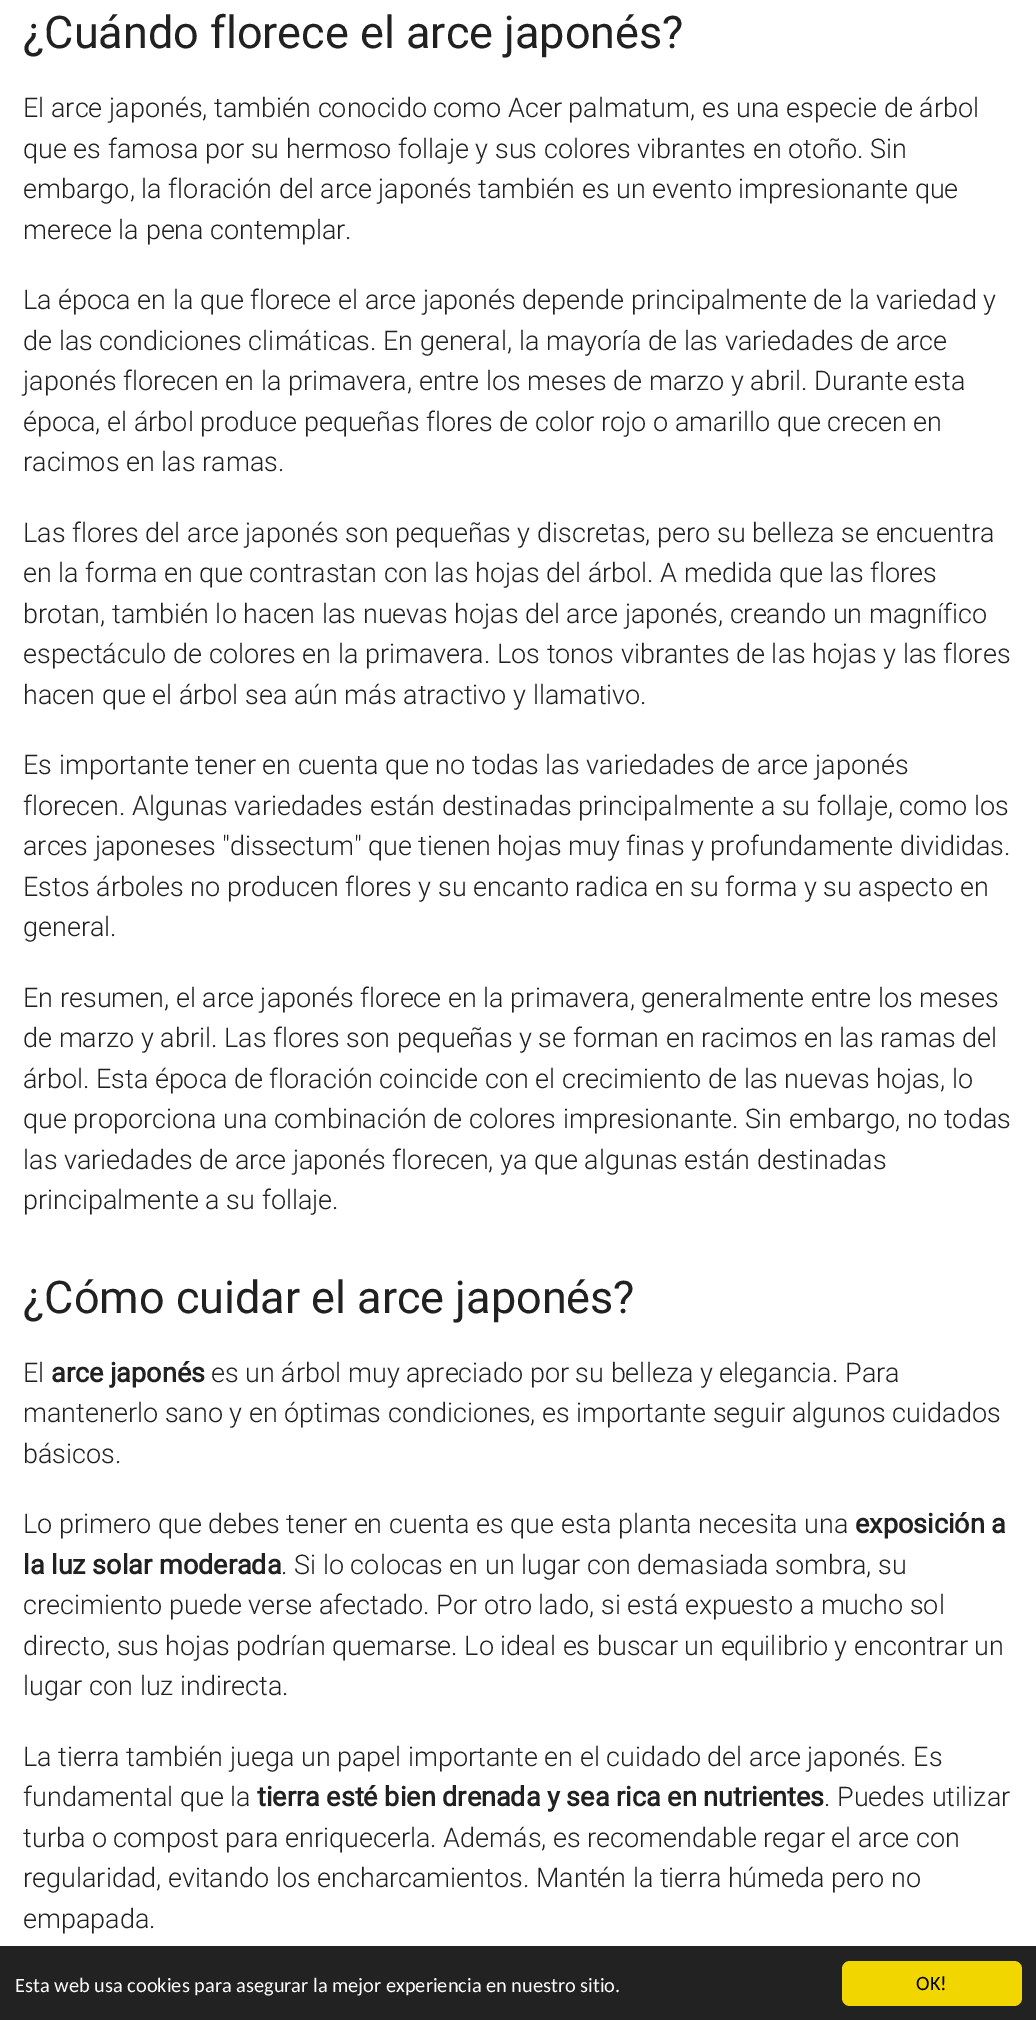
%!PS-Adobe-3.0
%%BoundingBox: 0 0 1036 2020
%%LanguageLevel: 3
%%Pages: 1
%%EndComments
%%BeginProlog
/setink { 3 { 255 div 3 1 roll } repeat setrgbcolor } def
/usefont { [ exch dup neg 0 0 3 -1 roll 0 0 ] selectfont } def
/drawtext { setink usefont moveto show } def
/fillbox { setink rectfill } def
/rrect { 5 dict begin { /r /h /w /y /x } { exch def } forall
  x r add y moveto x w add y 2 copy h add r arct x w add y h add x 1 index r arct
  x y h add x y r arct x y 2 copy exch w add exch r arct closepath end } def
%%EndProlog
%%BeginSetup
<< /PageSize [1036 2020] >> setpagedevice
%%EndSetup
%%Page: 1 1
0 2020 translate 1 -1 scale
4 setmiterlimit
0 0 1036 2020 255 255 255 fillbox
(¿Cuándo florece el arce japonés?) 23 48 /Roboto-Regular 45 33 33 33 drawtext
(El arce japonés, también conocido como Acer palmatum, es una especie de árbol) 23 117 /Roboto-Light 27 33 33 33 drawtext
(que es famosa por su hermoso follaje y sus colores vibrantes en otoño. Sin) 23 158 /Roboto-Light 27 33 33 33 drawtext
(embargo, la floración del arce japonés también es un evento impresionante que) 23 198 /Roboto-Light 27 33 33 33 drawtext
(merece la pena contemplar.) 23 239 /Roboto-Light 27 33 33 33 drawtext
(La época en la que florece el arce japonés depende principalmente de la variedad y) 23 309 /Roboto-Light 27 33 33 33 drawtext
(de las condiciones climáticas. En general, la mayoría de las variedades de arce) 23 350 /Roboto-Light 27 33 33 33 drawtext
(japonés florecen en la primavera, entre los meses de marzo y abril. Durante esta) 23 390 /Roboto-Light 27 33 33 33 drawtext
(época, el árbol produce pequeñas flores de color rojo o amarillo que crecen en) 23 431 /Roboto-Light 27 33 33 33 drawtext
(racimos en las ramas.) 23 471 /Roboto-Light 27 33 33 33 drawtext
(Las flores del arce japonés son pequeñas y discretas, pero su belleza se encuentra) 23 542 /Roboto-Light 27 33 33 33 drawtext
(en la forma en que contrastan con las hojas del árbol. A medida que las flores) 23 582 /Roboto-Light 27 33 33 33 drawtext
(brotan, también lo hacen las nuevas hojas del arce japonés, creando un magnífico) 23 623 /Roboto-Light 27 33 33 33 drawtext
(espectáculo de colores en la primavera. Los tonos vibrantes de las hojas y las flores) 23 663 /Roboto-Light 27 33 33 33 drawtext
(hacen que el árbol sea aún más atractivo y llamativo.) 23 704 /Roboto-Light 27 33 33 33 drawtext
(Es importante tener en cuenta que no todas las variedades de arce japonés) 23 774 /Roboto-Light 27 33 33 33 drawtext
(florecen. Algunas variedades están destinadas principalmente a su follaje, como los) 23 815 /Roboto-Light 27 33 33 33 drawtext
(arces japoneses "dissectum" que tienen hojas muy finas y profundamente divididas.) 23 855 /Roboto-Light 27 33 33 33 drawtext
(Estos árboles no producen flores y su encanto radica en su forma y su aspecto en) 23 896 /Roboto-Light 27 33 33 33 drawtext
(general.) 23 936 /Roboto-Light 27 33 33 33 drawtext
(En resumen, el arce japonés florece en la primavera, generalmente entre los meses) 23 1007 /Roboto-Light 27 33 33 33 drawtext
(de marzo y abril. Las flores son pequeñas y se forman en racimos en las ramas del) 23 1047 /Roboto-Light 27 33 33 33 drawtext
(árbol. Esta época de floración coincide con el crecimiento de las nuevas hojas, lo) 23 1088 /Roboto-Light 27 33 33 33 drawtext
(que proporciona una combinación de colores impresionante. Sin embargo, no todas) 23 1128 /Roboto-Light 27 33 33 33 drawtext
(las variedades de arce japonés florecen, ya que algunas están destinadas) 23 1169 /Roboto-Light 27 33 33 33 drawtext
(principalmente a su follaje.) 23 1209 /Roboto-Light 27 33 33 33 drawtext
(¿Cómo cuidar el arce japonés?) 23 1313 /Roboto-Regular 45 33 33 33 drawtext
(El) 23 1382 /Roboto-Light 27 33 33 33 drawtext
(arce japonés) 51 1382 /Roboto-Bold 27 33 33 33 drawtext
(es un árbol muy apreciado por su belleza y elegancia. Para) 211 1382 /Roboto-Light 27 33 33 33 drawtext
(mantenerlo sano y en óptimas condiciones, es importante seguir algunos cuidados) 23 1422 /Roboto-Light 27 33 33 33 drawtext
(básicos.) 23 1463 /Roboto-Light 27 33 33 33 drawtext
(Lo primero que debes tener en cuenta es que esta planta necesita una) 23 1533 /Roboto-Light 27 33 33 33 drawtext
(exposición a) 855 1533 /Roboto-Bold 27 33 33 33 drawtext
(la luz solar moderada) 23 1574 /Roboto-Bold 27 33 33 33 drawtext
(. Si lo colocas en un lugar con demasiada sombra, su) 281 1574 /Roboto-Light 27 33 33 33 drawtext
(crecimiento puede verse afectado. Por otro lado, si está expuesto a mucho sol) 23 1614 /Roboto-Light 27 33 33 33 drawtext
(directo, sus hojas podrían quemarse. Lo ideal es buscar un equilibrio y encontrar un) 23 1655 /Roboto-Light 27 33 33 33 drawtext
(lugar con luz indirecta.) 23 1695 /Roboto-Light 27 33 33 33 drawtext
(La tierra también juega un papel importante en el cuidado del arce japonés. Es) 23 1766 /Roboto-Light 27 33 33 33 drawtext
(fundamental que la) 23 1806 /Roboto-Light 27 33 33 33 drawtext
(tierra esté bien drenada y sea rica en nutrientes) 257 1806 /Roboto-Bold 27 33 33 33 drawtext
(. Puedes utilizar) 824 1806 /Roboto-Light 27 33 33 33 drawtext
(turba o compost para enriquecerla. Además, es recomendable regar el arce con) 23 1847 /Roboto-Light 27 33 33 33 drawtext
(regularidad, evitando los encharcamientos. Mantén la tierra húmeda pero no) 23 1887 /Roboto-Light 27 33 33 33 drawtext
(empapada.) 23 1928 /Roboto-Light 27 33 33 33 drawtext
0 1946 1036 74 34 34 34 fillbox
(Esta web usa cookies para asegurar la mejor experiencia en nuestro sitio.) 15 1992 /Carlito-Regular 20.4 255 255 255 drawtext
241 214 0 setink
842 1961 180 45 8 rrect fill
(OK!) 916 1990 /Carlito-Regular 20.4 0 0 0 drawtext
showpage
%%EOF
